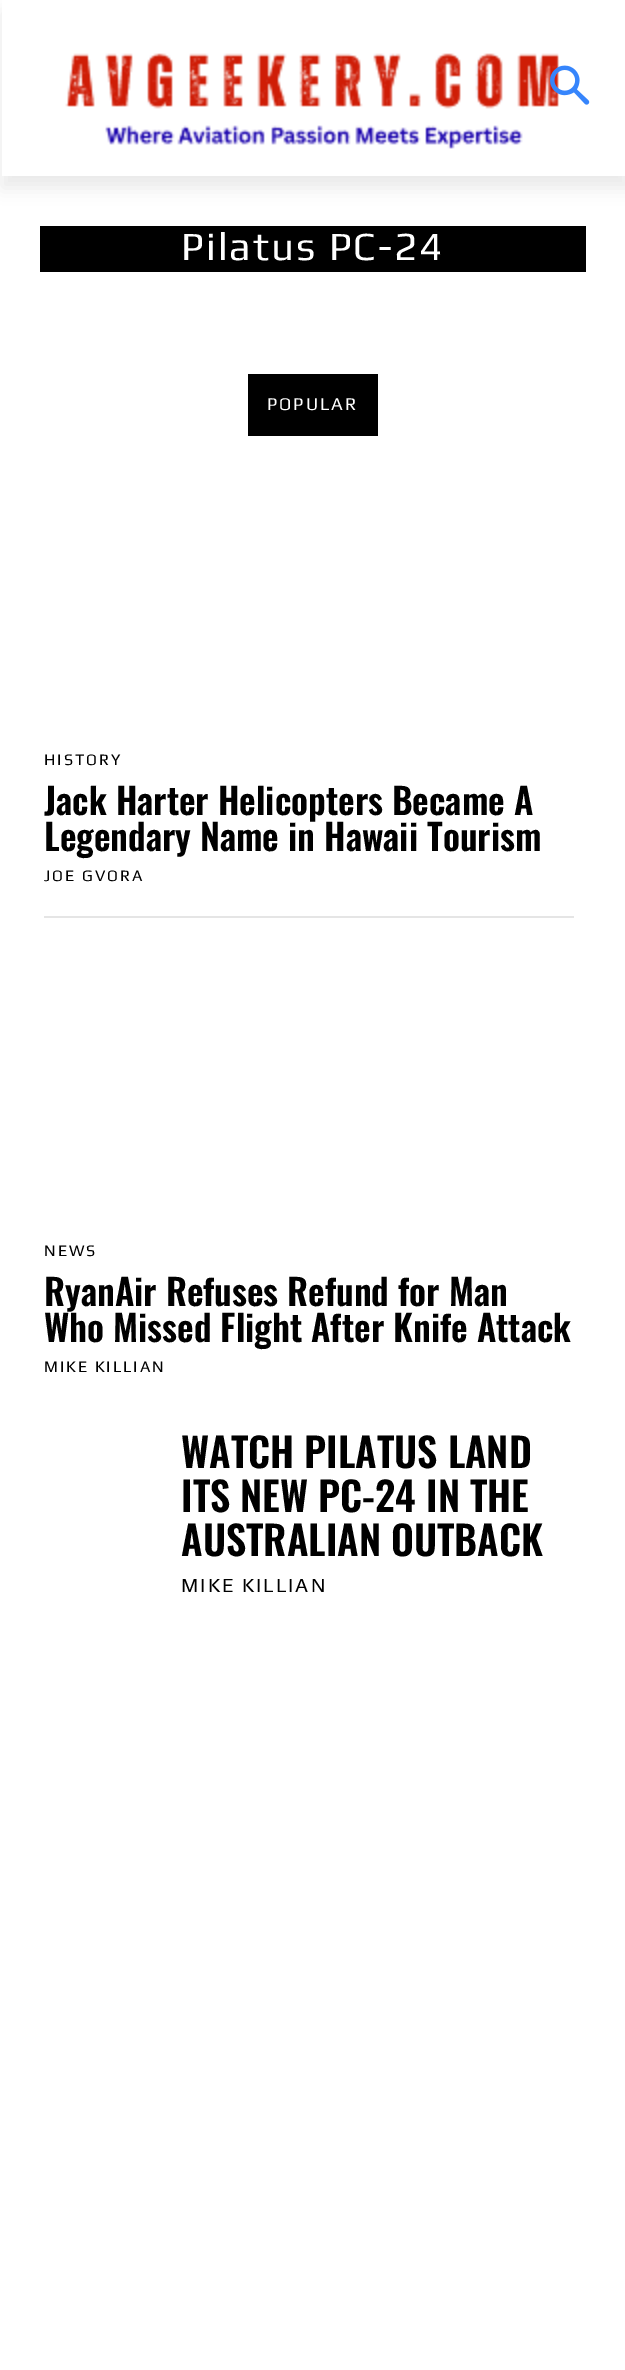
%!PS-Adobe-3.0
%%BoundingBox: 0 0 625 2370
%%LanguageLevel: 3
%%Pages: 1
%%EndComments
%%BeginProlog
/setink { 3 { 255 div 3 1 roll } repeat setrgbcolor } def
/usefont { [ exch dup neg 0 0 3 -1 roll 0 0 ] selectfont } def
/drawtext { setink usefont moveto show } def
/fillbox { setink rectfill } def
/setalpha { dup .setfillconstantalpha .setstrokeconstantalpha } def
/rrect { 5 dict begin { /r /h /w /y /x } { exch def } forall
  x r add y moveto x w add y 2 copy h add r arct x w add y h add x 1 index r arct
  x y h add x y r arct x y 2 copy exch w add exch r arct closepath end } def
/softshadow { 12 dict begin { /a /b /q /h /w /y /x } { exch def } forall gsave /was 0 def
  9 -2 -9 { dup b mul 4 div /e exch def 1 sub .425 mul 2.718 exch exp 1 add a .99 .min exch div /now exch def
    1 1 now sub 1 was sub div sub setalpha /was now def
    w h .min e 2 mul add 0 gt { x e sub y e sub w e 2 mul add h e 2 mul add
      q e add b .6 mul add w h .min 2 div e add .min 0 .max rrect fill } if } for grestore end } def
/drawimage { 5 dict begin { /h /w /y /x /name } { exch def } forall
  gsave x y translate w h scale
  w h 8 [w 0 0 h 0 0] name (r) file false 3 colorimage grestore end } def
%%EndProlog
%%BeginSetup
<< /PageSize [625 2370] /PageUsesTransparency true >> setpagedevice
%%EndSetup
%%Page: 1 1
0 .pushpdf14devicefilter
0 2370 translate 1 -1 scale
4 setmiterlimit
0 0 625 2370 255 255 255 fillbox
(assets/img1.rgb) 44 53 515 96 drawimage
(assets/img2.rgb) 550 65 40 40 drawimage
gsave
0 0 moveto 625 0 lineto 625 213 lineto 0 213 lineto closepath 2 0 moveto 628 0 lineto 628 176 lineto 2 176 lineto closepath eoclip newpath
0 0 0 setink
2 12 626 176 0 8 0.08 softshadow
grestore
40 226 546 46 0 0 0 fillbox
/Play-Regular 40 usefont
255 255 255 setink
181 260 moveto 2 0 (Pilatus PC-24) ashow
248 374 130 62 0 0 0 fillbox
/Play-Regular 18 usefont
255 255 255 setink
267 410 moveto 2 0 (POPULAR) ashow
/Play-Regular 16 usefont
0 0 0 setink
44 765 moveto 2 0 (HISTORY) ashow
(Jack Harter Helicopters Became A) 44 815 /Oswald-SemiBold 36 0 0 0 drawtext
(Legendary Name in Hawaii Tourism) 44 851 /Oswald-SemiBold 36 0 0 0 drawtext
/Play-Regular 16 usefont
44 881 moveto 2 0 (JOE GVORA) ashow
44 916 530 2 229 229 229 fillbox
0 0 0 setink
44 1256 moveto 2 0 (NEWS) ashow
(RyanAir Refuses Refund for Man) 44 1306 /Oswald-SemiBold 36 0 0 0 drawtext
(Who Missed Flight After Knife Attack) 44 1342 /Oswald-SemiBold 36 0 0 0 drawtext
/Play-Regular 16 usefont
44 1372 moveto 2 0 (MIKE KILLIAN) ashow
(WATCH PILATUS LAND) 181 1468 /Oswald-SemiBold 40 0 0 0 drawtext
(ITS NEW PC-24 IN THE) 181 1512 /Oswald-SemiBold 40 0 0 0 drawtext
(AUSTRALIAN OUTBACK) 181 1556 /Oswald-SemiBold 40 0 0 0 drawtext
/Play-Regular 20 usefont
181 1592 moveto 2 0 (MIKE KILLIAN) ashow
.poppdf14devicefilter showpage
%%EOF
